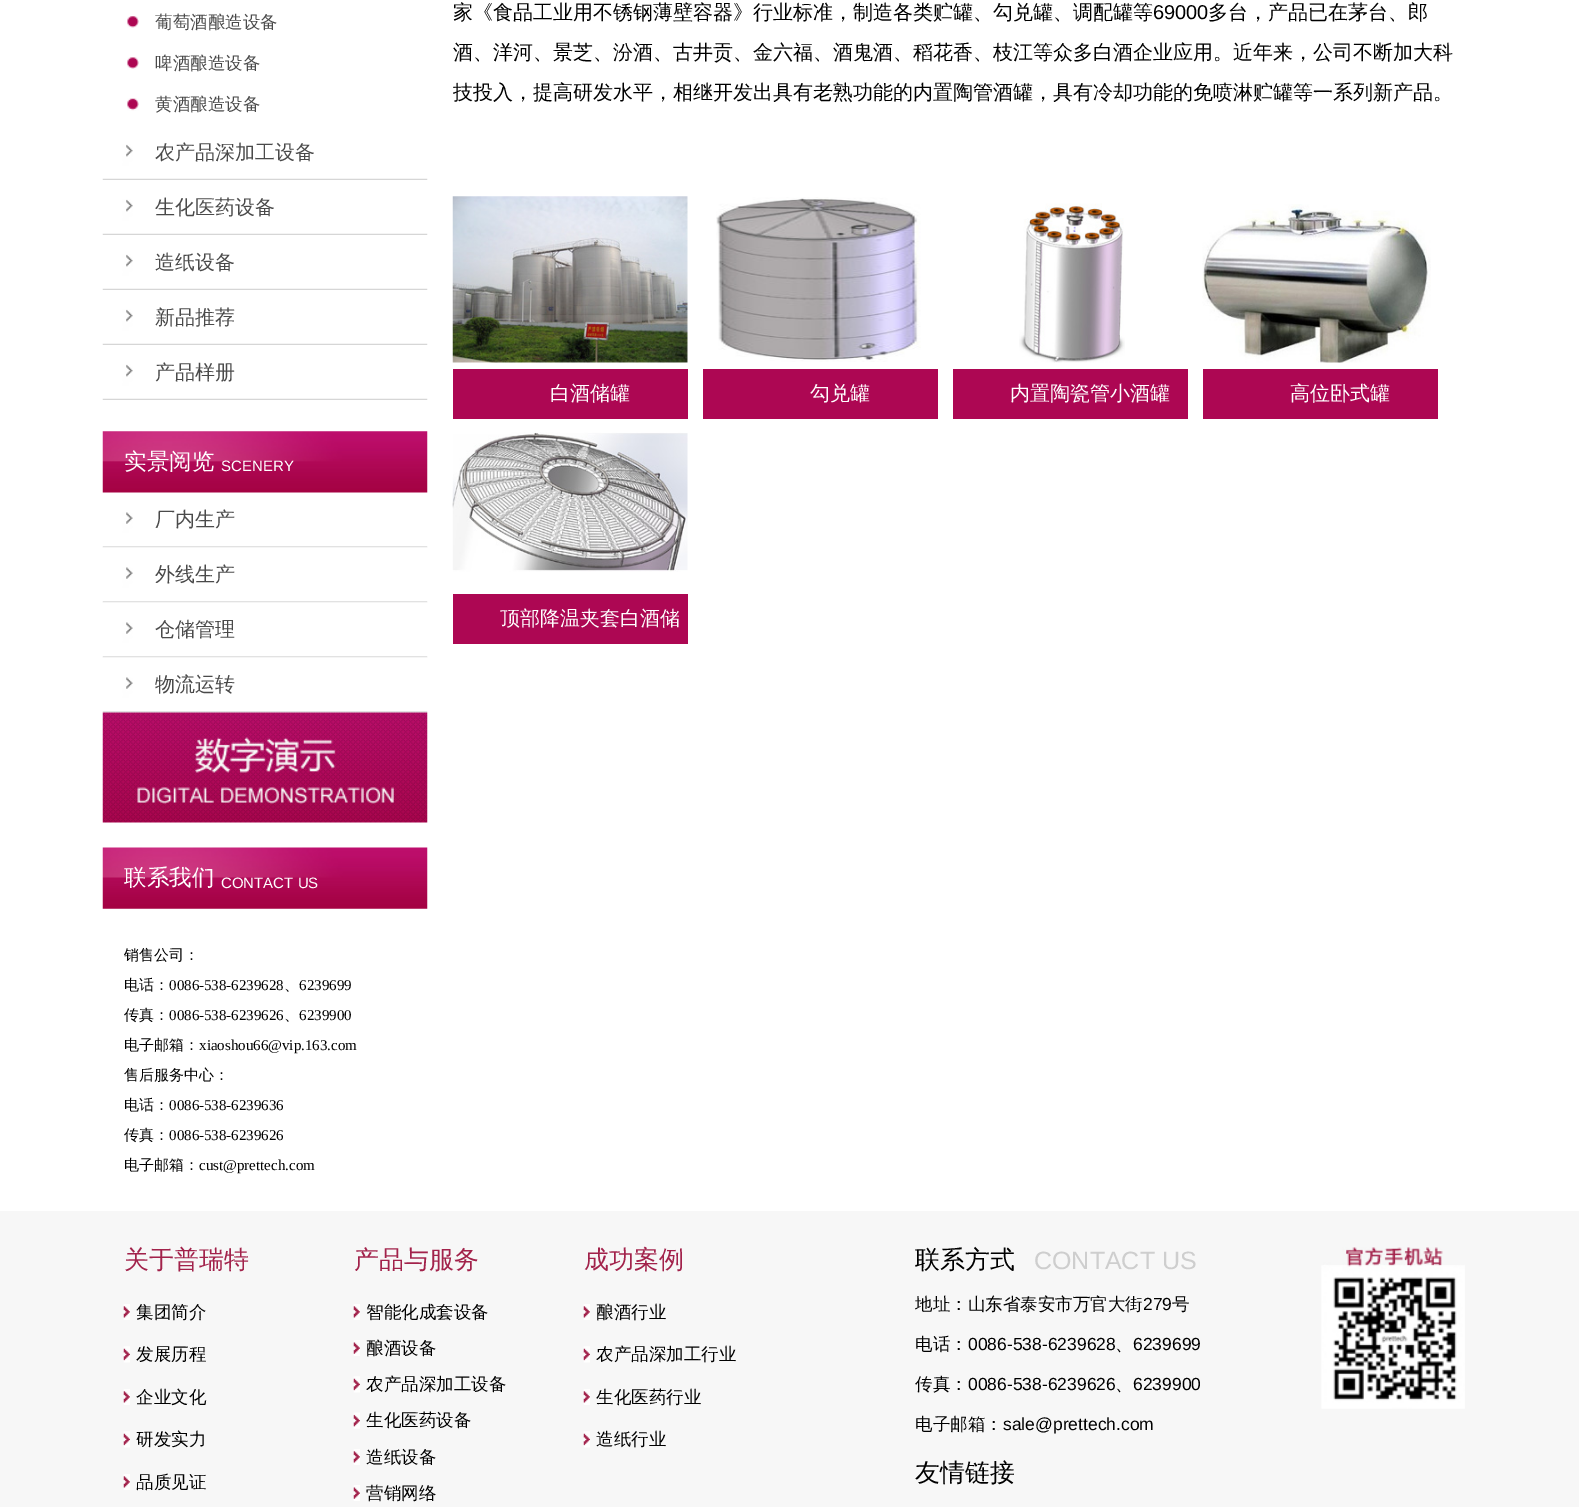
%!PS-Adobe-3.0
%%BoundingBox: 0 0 1579 1507
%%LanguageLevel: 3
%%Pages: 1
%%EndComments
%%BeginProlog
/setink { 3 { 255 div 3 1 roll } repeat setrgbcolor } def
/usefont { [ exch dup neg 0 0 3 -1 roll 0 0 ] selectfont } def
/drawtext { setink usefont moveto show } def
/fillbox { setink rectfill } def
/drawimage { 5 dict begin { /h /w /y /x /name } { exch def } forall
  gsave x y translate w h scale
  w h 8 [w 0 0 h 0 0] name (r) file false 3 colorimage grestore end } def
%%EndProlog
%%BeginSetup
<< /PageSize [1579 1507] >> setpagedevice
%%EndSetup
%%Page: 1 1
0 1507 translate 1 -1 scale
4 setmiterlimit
0 0 1579 1507 255 255 255 fillbox
(assets/img1.rgb) 127 16 12 12 drawimage
(葡萄酒酿造设备) 155 28 /WenQuanYiZenHei-Medium 17.5 74 74 74 drawtext
(assets/img2.rgb) 127 57 12 13 drawimage
(啤酒酿造设备) 155 69 /WenQuanYiZenHei-Medium 17.5 74 74 74 drawtext
(assets/img3.rgb) 127 98 12 13 drawimage
(黄酒酿造设备) 155 110 /WenQuanYiZenHei-Medium 17.5 74 74 74 drawtext
(assets/img4.rgb) 102 144 326 36 drawimage
(农产品深加工设备) 155 159 /WenQuanYiZenHei-Medium 20 74 74 74 drawtext
(assets/img4.rgb) 102 199 326 36 drawimage
(生化医药设备) 155 214 /WenQuanYiZenHei-Medium 20 74 74 74 drawtext
(assets/img4.rgb) 102 254 326 36 drawimage
(造纸设备) 155 269 /WenQuanYiZenHei-Medium 20 74 74 74 drawtext
(assets/img4.rgb) 102 309 326 36 drawimage
(新品推荐) 155 324 /WenQuanYiZenHei-Medium 20 74 74 74 drawtext
(assets/img4.rgb) 102 364 326 36 drawimage
(产品样册) 155 379 /WenQuanYiZenHei-Medium 20 74 74 74 drawtext
(assets/img5.rgb) 102 431 326 62 drawimage
(实景阅览) 124 469 /WenQuanYiZenHei-Medium 22.5 255 255 255 drawtext
(SCENERY) 221 471 /LiberationSans-Regular 15 255 255 255 drawtext
(assets/img6.rgb) 102 512 326 36 drawimage
(厂内生产) 155 526 /WenQuanYiZenHei-Medium 20 74 74 74 drawtext
(assets/img7.rgb) 102 547 326 56 drawimage
(外线生产) 155 581 /WenQuanYiZenHei-Medium 20 74 74 74 drawtext
(assets/img7.rgb) 102 602 326 56 drawimage
(仓储管理) 155 636 /WenQuanYiZenHei-Medium 20 74 74 74 drawtext
(assets/img7.rgb) 102 657 326 56 drawimage
(物流运转) 155 691 /WenQuanYiZenHei-Medium 20 74 74 74 drawtext
(assets/img8.rgb) 102 712 326 111 drawimage
(assets/img9.rgb) 102 847 326 62 drawimage
(联系我们) 124 885 /WenQuanYiZenHei-Medium 22.5 255 255 255 drawtext
(CONTACT US) 221 888 /LiberationSans-Regular 15 255 255 255 drawtext
(销售公司：) 124 960 /WenQuanYiZenHei-Medium 15 0 0 0 drawtext
(电话：) 124 990 /WenQuanYiZenHei-Medium 15 0 0 0 drawtext
(0086-538-6239628) 169 990 /LiberationSerif-Regular 15 0 0 0 drawtext
(、) 284 990 /WenQuanYiZenHei-Medium 15 0 0 0 drawtext
(6239699) 299 990 /LiberationSerif-Regular 15 0 0 0 drawtext
(传真：) 124 1020 /WenQuanYiZenHei-Medium 15 0 0 0 drawtext
(0086-538-6239626) 169 1020 /LiberationSerif-Regular 15 0 0 0 drawtext
(、) 284 1020 /WenQuanYiZenHei-Medium 15 0 0 0 drawtext
(6239900) 299 1020 /LiberationSerif-Regular 15 0 0 0 drawtext
(电子邮箱：) 124 1050 /WenQuanYiZenHei-Medium 15 0 0 0 drawtext
(xiaoshou66@vip.163.com) 199 1050 /LiberationSerif-Regular 15 0 0 0 drawtext
(售后服务中心：) 124 1080 /WenQuanYiZenHei-Medium 15 0 0 0 drawtext
(电话：) 124 1110 /WenQuanYiZenHei-Medium 15 0 0 0 drawtext
(0086-538-6239636) 169 1110 /LiberationSerif-Regular 15 0 0 0 drawtext
(传真：) 124 1140 /WenQuanYiZenHei-Medium 15 0 0 0 drawtext
(0086-538-6239626) 169 1140 /LiberationSerif-Regular 15 0 0 0 drawtext
(电子邮箱：) 124 1170 /WenQuanYiZenHei-Medium 15 0 0 0 drawtext
(cust@prettech.com) 199 1170 /LiberationSerif-Regular 15 0 0 0 drawtext
(家《食品工业用不锈钢薄壁容器》行业标准，制造各类贮罐、勾兑罐、调配罐等) 453 19 /WenQuanYiZenHei-Medium 20 0 0 0 drawtext
(69000) 1153 19 /LiberationSans-Regular 20 0 0 0 drawtext
(多台，产品已在茅台、郎) 1208 19 /WenQuanYiZenHei-Medium 20 0 0 0 drawtext
(酒、洋河、景芝、汾酒、古井贡、金六福、酒鬼酒、稻花香、枝江等众多白酒企业应用。近年来，公司不断加大科) 453 59 /WenQuanYiZenHei-Medium 20 0 0 0 drawtext
(技投入，提高研发水平，相继开发出具有老熟功能的内置陶管酒罐，具有冷却功能的免喷淋贮罐等一系列新产品。) 453 99 /WenQuanYiZenHei-Medium 20 0 0 0 drawtext
(assets/img10.rgb) 452 196 236 167 drawimage
453 369 235 50 173 7 83 fillbox
(白酒储罐) 550 400 /WenQuanYiZenHei-Medium 20 255 255 255 drawtext
(assets/img11.rgb) 716 197 205 165 drawimage
703 369 235 50 173 7 83 fillbox
(勾兑罐) 810 400 /WenQuanYiZenHei-Medium 20 255 255 255 drawtext
(assets/img12.rgb) 1019 203 106 160 drawimage
953 369 235 50 173 7 83 fillbox
(内置陶瓷管小酒罐) 1010 400 /WenQuanYiZenHei-Medium 20 255 255 255 drawtext
(assets/img13.rgb) 1202 204 229 159 drawimage
1203 369 235 50 173 7 83 fillbox
(高位卧式罐) 1290 400 /WenQuanYiZenHei-Medium 20 255 255 255 drawtext
(assets/img14.rgb) 452 432 236 140 drawimage
453 594 235 50 173 7 83 fillbox
(顶部降温夹套白酒储) 500 625 /WenQuanYiZenHei-Medium 20 255 255 255 drawtext
0 1211 1579 296 247 247 247 fillbox
(关于普瑞特) 124 1268 /WenQuanYiZenHei-Medium 25 162 34 75 drawtext
(assets/img15.rgb) 123 1304 7 16 drawimage
(集团简介) 136 1318 /WenQuanYiZenHei-Medium 17.5 0 0 0 drawtext
(assets/img16.rgb) 123 1346 7 17 drawimage
(发展历程) 136 1360 /WenQuanYiZenHei-Medium 17.5 0 0 0 drawtext
(assets/img15.rgb) 123 1389 7 16 drawimage
(企业文化) 136 1403 /WenQuanYiZenHei-Medium 17.5 0 0 0 drawtext
(assets/img16.rgb) 123 1431 7 17 drawimage
(研发实力) 136 1445 /WenQuanYiZenHei-Medium 17.5 0 0 0 drawtext
(assets/img15.rgb) 123 1474 7 16 drawimage
(品质见证) 136 1488 /WenQuanYiZenHei-Medium 17.5 0 0 0 drawtext
(产品与服务) 354 1268 /WenQuanYiZenHei-Medium 25 162 34 75 drawtext
(assets/img15.rgb) 353 1304 7 16 drawimage
(智能化成套设备) 366 1318 /WenQuanYiZenHei-Medium 17.5 0 0 0 drawtext
(assets/img17.rgb) 353 1340 7 16 drawimage
(酿酒设备) 366 1354 /WenQuanYiZenHei-Medium 17.5 0 0 0 drawtext
(assets/img18.rgb) 353 1376 7 17 drawimage
(农产品深加工设备) 366 1390 /WenQuanYiZenHei-Medium 17.5 0 0 0 drawtext
(assets/img19.rgb) 353 1412 7 17 drawimage
(生化医药设备) 366 1426 /WenQuanYiZenHei-Medium 17.5 0 0 0 drawtext
(assets/img15.rgb) 353 1449 7 16 drawimage
(造纸设备) 366 1463 /WenQuanYiZenHei-Medium 17.5 0 0 0 drawtext
(assets/img17.rgb) 353 1485 7 16 drawimage
(营销网络) 366 1499 /WenQuanYiZenHei-Medium 17.5 0 0 0 drawtext
(成功案例) 584 1268 /WenQuanYiZenHei-Medium 25 162 34 75 drawtext
(assets/img15.rgb) 583 1304 7 16 drawimage
(酿酒行业) 596 1318 /WenQuanYiZenHei-Medium 17.5 0 0 0 drawtext
(assets/img16.rgb) 583 1346 7 17 drawimage
(农产品深加工行业) 596 1360 /WenQuanYiZenHei-Medium 17.5 0 0 0 drawtext
(assets/img15.rgb) 583 1389 7 16 drawimage
(生化医药行业) 596 1403 /WenQuanYiZenHei-Medium 17.5 0 0 0 drawtext
(assets/img16.rgb) 583 1431 7 17 drawimage
(造纸行业) 596 1445 /WenQuanYiZenHei-Medium 17.5 0 0 0 drawtext
(assets/img20.rgb) 1321 1247 144 162 drawimage
(联系方式) 915 1268 /WenQuanYiZenHei-Medium 25 0 0 0 drawtext
(CONTACT US) 1034 1269 /LiberationSans-Regular 25 206 206 206 drawtext
(地址：山东省泰安市万官大街) 915 1310 /WenQuanYiZenHei-Medium 17.5 0 0 0 drawtext
(279) 1143 1310 /LiberationSans-Regular 17.5 0 0 0 drawtext
(号) 1172 1310 /WenQuanYiZenHei-Medium 17.5 0 0 0 drawtext
(电话：) 915 1350 /WenQuanYiZenHei-Medium 17.5 0 0 0 drawtext
(0086-538-6239628) 968 1350 /LiberationSans-Regular 17.5 0 0 0 drawtext
(、) 1115 1350 /WenQuanYiZenHei-Medium 17.5 0 0 0 drawtext
(6239699) 1133 1350 /LiberationSans-Regular 17.5 0 0 0 drawtext
(传真：) 915 1390 /WenQuanYiZenHei-Medium 17.5 0 0 0 drawtext
(0086-538-6239626) 968 1390 /LiberationSans-Regular 17.5 0 0 0 drawtext
(、) 1115 1390 /WenQuanYiZenHei-Medium 17.5 0 0 0 drawtext
(6239900) 1133 1390 /LiberationSans-Regular 17.5 0 0 0 drawtext
(电子邮箱：) 915 1430 /WenQuanYiZenHei-Medium 17.5 0 0 0 drawtext
(sale@prettech.com) 1003 1430 /LiberationSans-Regular 17.5 0 0 0 drawtext
(友情链接) 915 1481 /WenQuanYiZenHei-Medium 25 0 0 0 drawtext
showpage
%%EOF
